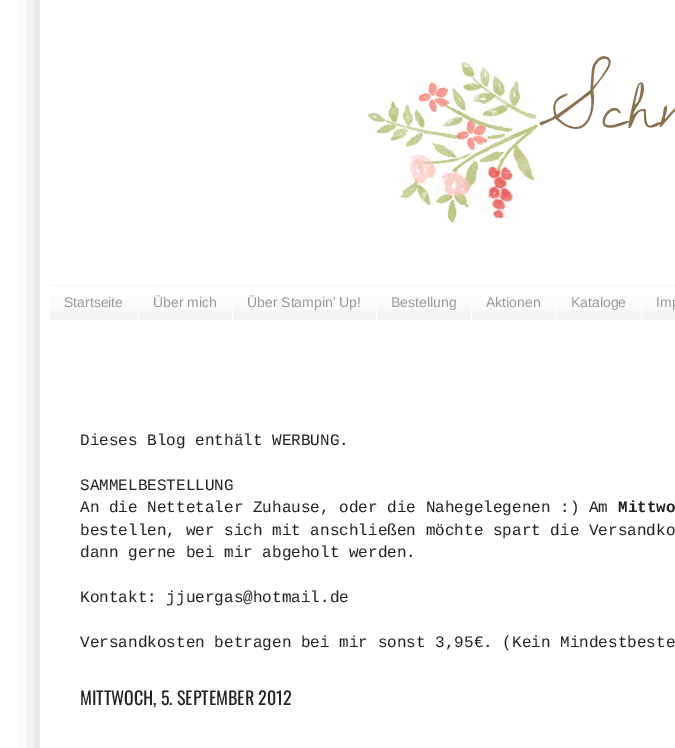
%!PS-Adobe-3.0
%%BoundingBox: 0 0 675 748
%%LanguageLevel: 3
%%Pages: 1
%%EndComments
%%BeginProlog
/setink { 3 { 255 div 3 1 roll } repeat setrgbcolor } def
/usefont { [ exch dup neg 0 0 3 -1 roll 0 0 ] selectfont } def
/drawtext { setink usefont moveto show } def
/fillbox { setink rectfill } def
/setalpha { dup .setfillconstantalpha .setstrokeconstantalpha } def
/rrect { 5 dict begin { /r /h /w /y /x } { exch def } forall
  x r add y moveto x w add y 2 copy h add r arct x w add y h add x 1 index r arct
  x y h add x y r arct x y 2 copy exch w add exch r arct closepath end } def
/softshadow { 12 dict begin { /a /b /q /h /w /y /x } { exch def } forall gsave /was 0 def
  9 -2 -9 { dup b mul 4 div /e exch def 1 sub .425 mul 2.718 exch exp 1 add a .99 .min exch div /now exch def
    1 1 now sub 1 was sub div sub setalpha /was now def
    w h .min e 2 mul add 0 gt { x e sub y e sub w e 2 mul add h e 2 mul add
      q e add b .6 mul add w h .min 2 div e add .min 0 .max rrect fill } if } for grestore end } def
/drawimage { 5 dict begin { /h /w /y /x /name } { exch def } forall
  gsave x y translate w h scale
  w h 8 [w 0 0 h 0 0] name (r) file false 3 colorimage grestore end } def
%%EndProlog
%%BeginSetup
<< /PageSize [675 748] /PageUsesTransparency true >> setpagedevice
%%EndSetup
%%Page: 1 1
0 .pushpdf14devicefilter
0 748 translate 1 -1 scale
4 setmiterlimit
0 0 675 748 255 255 255 fillbox
gsave
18 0 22 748 rectclip
0 0 0 setink
40 -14 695 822 0 20 0.15 softshadow
grestore
(assets/img1.rgb) 365 56 310 169 drawimage
50 285 625 35 245 245 245 fillbox
(assets/img2.rgb) 50 286 625 24 drawimage
(Startseite) 64 307 /LiberationSans-Regular 14 153 153 153 drawtext
138 297 1 22 255 255 255 fillbox
(Über mich) 153 307 /LiberationSans-Regular 14 153 153 153 drawtext
232 297 1 22 255 255 255 fillbox
(Über Stampin' Up!) 247 307 /LiberationSans-Regular 14 153 153 153 drawtext
376 297 1 22 255 255 255 fillbox
(Bestellung) 391 307 /LiberationSans-Regular 14 153 153 153 drawtext
471 297 1 22 255 255 255 fillbox
(Aktionen) 486 307 /LiberationSans-Regular 14 153 153 153 drawtext
556 297 1 22 255 255 255 fillbox
(Kataloge) 571 307 /LiberationSans-Regular 14 153 153 153 drawtext
641 297 1 22 255 255 255 fillbox
(Imp) 656 307 /LiberationSans-Regular 14 153 153 153 drawtext
(Dieses Blog enthält WERBUNG.) 80 445 /LiberationMono-Regular 16 34 34 34 drawtext
(SAMMELBESTELLUNG) 80 490 /LiberationMono-Regular 16 34 34 34 drawtext
(An die Nettetaler Zuhause, oder die Nahegelegenen :\) Am) 80 512 /LiberationMono-Regular 16 34 34 34 drawtext
(Mittwo) 618 512 /LiberationMono-Bold 16 34 34 34 drawtext
(bestellen, wer sich mit anschließen möchte spart die Versandko) 80 535 /LiberationMono-Regular 16 34 34 34 drawtext
(dann gerne bei mir abgeholt werden.) 80 557 /LiberationMono-Regular 16 34 34 34 drawtext
(Kontakt: jjuergas@hotmail.de) 80 602 /LiberationMono-Regular 16 34 34 34 drawtext
(Versandkosten betragen bei mir sonst 3,95€. \(Kein Mindestbeste) 80 647 /LiberationMono-Regular 16 34 34 34 drawtext
(MITTWOCH, 5. SEPTEMBER 2012) 80 705 /Oswald-Regular 18 34 34 34 drawtext
.poppdf14devicefilter showpage
%%EOF
